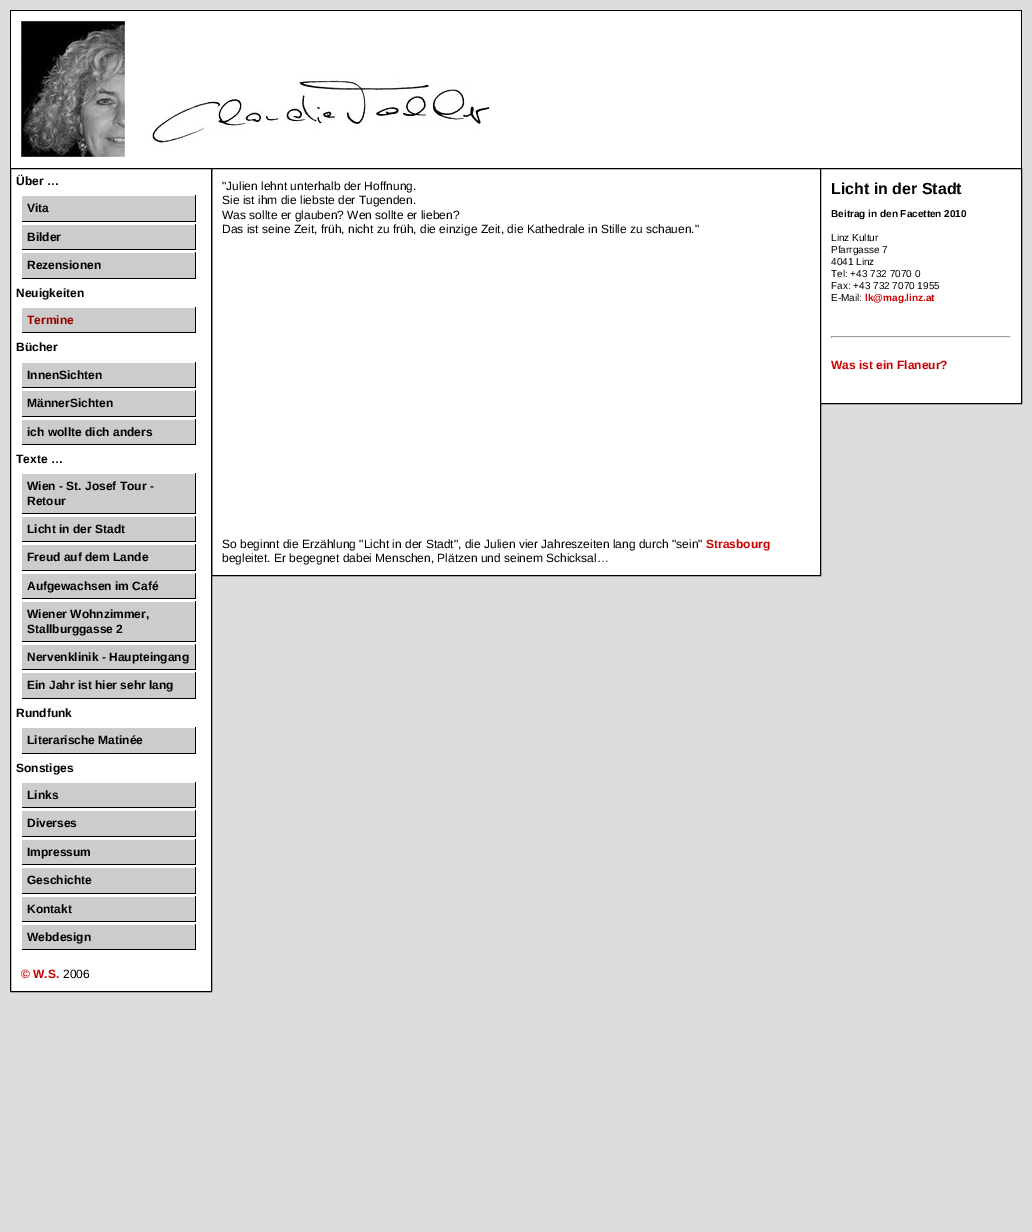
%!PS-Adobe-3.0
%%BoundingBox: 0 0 1032 1232
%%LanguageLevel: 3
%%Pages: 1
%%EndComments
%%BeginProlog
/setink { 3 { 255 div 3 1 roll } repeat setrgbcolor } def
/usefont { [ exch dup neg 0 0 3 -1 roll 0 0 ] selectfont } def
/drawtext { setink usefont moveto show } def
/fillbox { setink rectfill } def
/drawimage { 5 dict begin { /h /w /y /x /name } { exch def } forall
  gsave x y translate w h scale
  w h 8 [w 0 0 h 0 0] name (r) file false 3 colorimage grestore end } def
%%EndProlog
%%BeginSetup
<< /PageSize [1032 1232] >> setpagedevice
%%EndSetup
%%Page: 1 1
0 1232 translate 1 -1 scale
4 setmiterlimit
0 0 1032 1232 221 221 221 fillbox
11 11 1010 157 255 255 255 fillbox
10 10 1012 1 0 0 0 fillbox
1021 10 1 158 0 0 0 fillbox
10 10 1 158 0 0 0 fillbox
(assets/img1.rgb) 21 21 104 136 drawimage
(assets/img2.rgb) 146 75 345 72 drawimage
255 255 255 setink
211.5 168.5 moveto 820.5 168.5 lineto 820.5 575.5 lineto 211.5 575.5 lineto closepath gsave fill grestore
0 0 0 setink
stroke
255 255 255 setink
10.5 168.5 moveto 211.5 168.5 lineto 211.5 991.5 lineto 10.5 991.5 lineto closepath gsave fill grestore
0 0 0 setink
stroke
(Über …) 16 185 /LiberationSans-Bold 12 0 0 0 drawtext
22 196 173 25 204 204 204 fillbox
195 195 1 27 0 0 0 fillbox
21 221 175 1 0 0 0 fillbox
21 221 1 1 255 255 255 fillbox
(Vita) 27 212 /LiberationSans-Bold 12 0 0 0 drawtext
22 225 173 24 204 204 204 fillbox
195 224 1 26 0 0 0 fillbox
21 249 175 1 0 0 0 fillbox
21 249 1 1 255 255 255 fillbox
(Bilder) 27 241 /LiberationSans-Bold 12 0 0 0 drawtext
22 253 173 25 204 204 204 fillbox
195 252 1 27 0 0 0 fillbox
21 278 175 1 0 0 0 fillbox
21 278 1 1 255 255 255 fillbox
(Rezensionen) 27 269 /LiberationSans-Bold 12 0 0 0 drawtext
(Neuigkeiten) 16 297 /LiberationSans-Bold 12 0 0 0 drawtext
22 308 173 24 204 204 204 fillbox
195 307 1 26 0 0 0 fillbox
21 332 175 1 0 0 0 fillbox
21 332 1 1 255 255 255 fillbox
(Termine) 27 324 /LiberationSans-Bold 12 153 0 0 drawtext
(Bücher) 16 351 /LiberationSans-Bold 12 0 0 0 drawtext
22 363 173 24 204 204 204 fillbox
195 362 1 26 0 0 0 fillbox
21 387 175 1 0 0 0 fillbox
21 387 1 1 255 255 255 fillbox
(InnenSichten) 27 379 /LiberationSans-Bold 12 0 0 0 drawtext
22 391 173 25 204 204 204 fillbox
195 390 1 27 0 0 0 fillbox
21 416 175 1 0 0 0 fillbox
21 416 1 1 255 255 255 fillbox
(MännerSichten) 27 407 /LiberationSans-Bold 12 0 0 0 drawtext
22 420 173 24 204 204 204 fillbox
195 419 1 26 0 0 0 fillbox
21 444 175 1 0 0 0 fillbox
21 444 1 1 255 255 255 fillbox
(ich wollte dich anders) 27 436 /LiberationSans-Bold 12 0 0 0 drawtext
(Texte …) 16 463 /LiberationSans-Bold 12 0 0 0 drawtext
22 474 173 39 204 204 204 fillbox
195 473 1 41 0 0 0 fillbox
21 513 175 1 0 0 0 fillbox
21 513 1 1 255 255 255 fillbox
(Wien - St. Josef Tour -) 27 490 /LiberationSans-Bold 12 0 0 0 drawtext
(Retour) 27 505 /LiberationSans-Bold 12 0 0 0 drawtext
22 517 173 24 204 204 204 fillbox
195 516 1 26 0 0 0 fillbox
21 541 175 1 0 0 0 fillbox
21 541 1 1 255 255 255 fillbox
(Licht in der Stadt) 27 533 /LiberationSans-Bold 12 0 0 0 drawtext
22 545 173 25 204 204 204 fillbox
195 544 1 27 0 0 0 fillbox
21 570 175 1 0 0 0 fillbox
21 570 1 1 255 255 255 fillbox
(Freud auf dem Lande) 27 561 /LiberationSans-Bold 12 0 0 0 drawtext
22 574 173 24 204 204 204 fillbox
195 573 1 26 0 0 0 fillbox
21 598 175 1 0 0 0 fillbox
21 598 1 1 255 255 255 fillbox
(Aufgewachsen im Café) 27 590 /LiberationSans-Bold 12 0 0 0 drawtext
22 602 173 39 204 204 204 fillbox
195 601 1 41 0 0 0 fillbox
21 641 175 1 0 0 0 fillbox
21 641 1 1 255 255 255 fillbox
(Wiener Wohnzimmer,) 27 618 /LiberationSans-Bold 12 0 0 0 drawtext
(Stallburggasse 2) 27 633 /LiberationSans-Bold 12 0 0 0 drawtext
22 645 173 24 204 204 204 fillbox
195 644 1 26 0 0 0 fillbox
21 669 175 1 0 0 0 fillbox
21 669 1 1 255 255 255 fillbox
(Nervenklinik - Haupteingang) 27 661 /LiberationSans-Bold 12 0 0 0 drawtext
22 673 173 25 204 204 204 fillbox
195 672 1 27 0 0 0 fillbox
21 698 175 1 0 0 0 fillbox
21 698 1 1 255 255 255 fillbox
(Ein Jahr ist hier sehr lang) 27 689 /LiberationSans-Bold 12 0 0 0 drawtext
(Rundfunk) 16 717 /LiberationSans-Bold 12 0 0 0 drawtext
22 728 173 25 204 204 204 fillbox
195 727 1 27 0 0 0 fillbox
21 753 175 1 0 0 0 fillbox
21 753 1 1 255 255 255 fillbox
(Literarische Matinée) 27 744 /LiberationSans-Bold 12 0 0 0 drawtext
(Sonstiges) 16 772 /LiberationSans-Bold 12 0 0 0 drawtext
22 783 173 24 204 204 204 fillbox
195 782 1 26 0 0 0 fillbox
21 807 175 1 0 0 0 fillbox
21 807 1 1 255 255 255 fillbox
(Links) 27 799 /LiberationSans-Bold 12 0 0 0 drawtext
22 811 173 25 204 204 204 fillbox
195 810 1 27 0 0 0 fillbox
21 836 175 1 0 0 0 fillbox
21 836 1 1 255 255 255 fillbox
(Diverses) 27 827 /LiberationSans-Bold 12 0 0 0 drawtext
22 840 173 24 204 204 204 fillbox
195 839 1 26 0 0 0 fillbox
21 864 175 1 0 0 0 fillbox
21 864 1 1 255 255 255 fillbox
(Impressum) 27 856 /LiberationSans-Bold 12 0 0 0 drawtext
22 868 173 25 204 204 204 fillbox
195 867 1 27 0 0 0 fillbox
21 893 175 1 0 0 0 fillbox
21 893 1 1 255 255 255 fillbox
(Geschichte) 27 884 /LiberationSans-Bold 12 0 0 0 drawtext
22 897 173 24 204 204 204 fillbox
195 896 1 26 0 0 0 fillbox
21 921 175 1 0 0 0 fillbox
21 921 1 1 255 255 255 fillbox
(Kontakt) 27 913 /LiberationSans-Bold 12 0 0 0 drawtext
22 925 173 24 204 204 204 fillbox
195 924 1 26 0 0 0 fillbox
21 949 175 1 0 0 0 fillbox
21 949 1 1 255 255 255 fillbox
(Webdesign) 27 941 /LiberationSans-Bold 12 0 0 0 drawtext
(© W.S.) 21 978 /LiberationSans-Bold 12 204 0 0 drawtext
(2006) 63 978 /LiberationSans-Regular 12 0 0 0 drawtext
("Julien lehnt unterhalb der Hoffnung.) 222 190 /LiberationSans-Regular 12 0 0 0 drawtext
(Sie ist ihm die liebste der Tugenden.) 222 204 /LiberationSans-Regular 12 0 0 0 drawtext
(Was sollte er glauben? Wen sollte er lieben?) 222 219 /LiberationSans-Regular 12 0 0 0 drawtext
(Das ist seine Zeit, früh, nicht zu früh, die einzige Zeit, die Kathedrale in Stille zu schauen.") 222 233 /LiberationSans-Regular 12 0 0 0 drawtext
(So beginnt die Erzählung "Licht in der Stadt", die Julien vier Jahreszeiten lang durch "sein") 222 548 /LiberationSans-Regular 12 0 0 0 drawtext
(Strasbourg) 706 548 /LiberationSans-Bold 12 204 0 0 drawtext
(begleitet. Er begegnet dabei Menschen, Plätzen und seinem Schicksal…) 222 562 /LiberationSans-Regular 12 0 0 0 drawtext
255 255 255 setink
820.5 168.5 moveto 1021.5 168.5 lineto 1021.5 403.5 lineto 820.5 403.5 lineto closepath gsave fill grestore
0 0 0 setink
stroke
(Licht in der Stadt) 831 194 /LiberationSans-Bold 16 0 0 0 drawtext
(Beitrag in den Facetten 2010) 831 217 /LiberationSans-Bold 10 0 0 0 drawtext
(Linz Kultur) 831 241 /LiberationSans-Regular 10 0 0 0 drawtext
(Pfarrgasse 7) 831 253 /LiberationSans-Regular 10 0 0 0 drawtext
(4041 Linz) 831 265 /LiberationSans-Regular 10 0 0 0 drawtext
(Tel: +43 732 7070 0) 831 277 /LiberationSans-Regular 10 0 0 0 drawtext
(Fax: +43 732 7070 1955) 831 289 /LiberationSans-Regular 10 0 0 0 drawtext
(E-Mail:) 831 301 /LiberationSans-Regular 10 0 0 0 drawtext
(lk@mag.linz.at) 865 301 /LiberationSans-Bold 10 204 0 0 drawtext
831 336 180 1 159 159 159 fillbox
1010 336 1 2 238 238 238 fillbox
831 337 180 1 238 238 238 fillbox
831 336 1 2 159 159 159 fillbox
(Was ist ein Flaneur?) 831 369 /LiberationSans-Bold 12 204 0 0 drawtext
showpage
%%EOF
